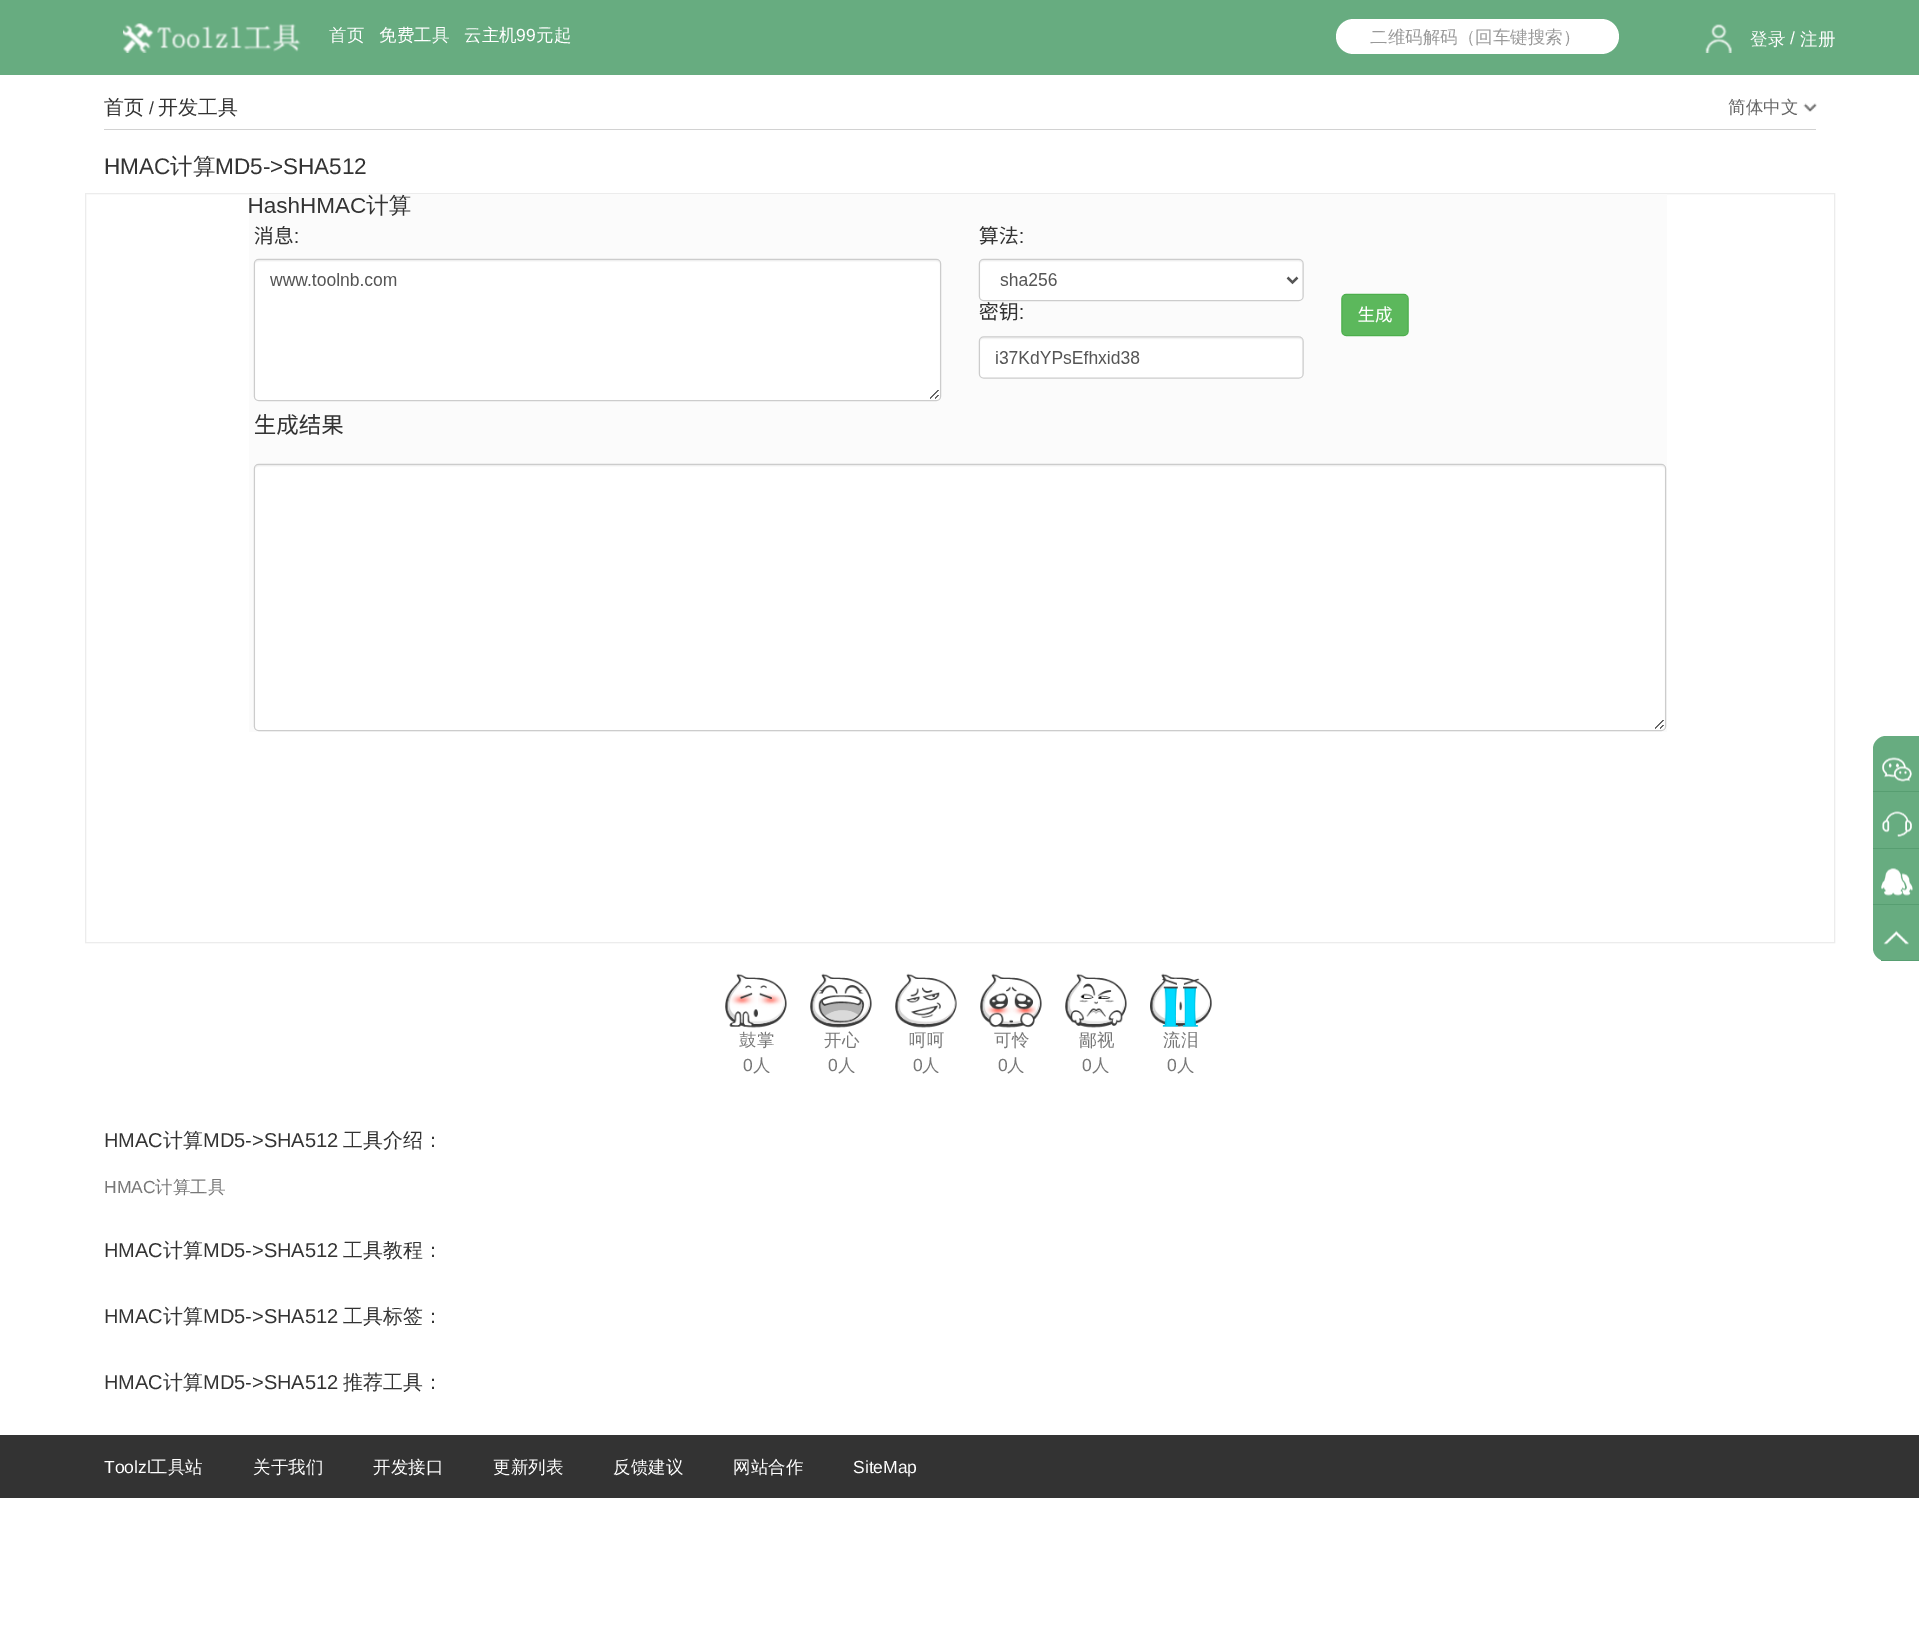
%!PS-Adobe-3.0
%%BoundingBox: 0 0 1919 1634
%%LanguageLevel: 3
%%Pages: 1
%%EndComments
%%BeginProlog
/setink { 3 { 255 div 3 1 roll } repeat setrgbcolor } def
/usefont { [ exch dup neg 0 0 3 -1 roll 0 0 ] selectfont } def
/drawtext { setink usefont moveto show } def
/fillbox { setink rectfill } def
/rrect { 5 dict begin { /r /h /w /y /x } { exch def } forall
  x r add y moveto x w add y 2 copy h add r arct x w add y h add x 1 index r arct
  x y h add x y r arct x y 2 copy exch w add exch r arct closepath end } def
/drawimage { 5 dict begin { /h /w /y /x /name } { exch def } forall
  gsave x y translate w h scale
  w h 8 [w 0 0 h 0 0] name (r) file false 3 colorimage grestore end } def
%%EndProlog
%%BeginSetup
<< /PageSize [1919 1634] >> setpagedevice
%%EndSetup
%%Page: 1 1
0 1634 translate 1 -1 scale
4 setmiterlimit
0 0 1919 1634 255 255 255 fillbox
0 0 1919 75 103 172 128 fillbox
(assets/img1.rgb) 123 23 178 30 drawimage
(首页) 329 41 /WenQuanYiZenHei-Medium 17.5 255 255 255 drawtext
(免费工具) 379 41 /WenQuanYiZenHei-Medium 17.5 255 255 255 drawtext
(云主机) 464 41 /WenQuanYiZenHei-Medium 17.5 255 255 255 drawtext
(99) 516 41 /LiberationSans-Regular 17.5 255 255 255 drawtext
(元起) 536 41 /WenQuanYiZenHei-Medium 17.5 255 255 255 drawtext
1336 19 283 35 17.5 rrect fill
(二维码解码（回车键搜索）) 1370 43 /WenQuanYiZenHei-Medium 17.5 153 153 153 drawtext
(assets/img2.rgb) 1705 24 27 29 drawimage
(登录) 1750 45 /WenQuanYiZenHei-Medium 17.5 255 255 255 drawtext
(/) 1790 44 /LiberationSans-Regular 17.5 255 255 255 drawtext
(注册) 1800 45 /WenQuanYiZenHei-Medium 17.5 255 255 255 drawtext
104 129 1712 1 210 210 210 fillbox
(首页) 104 114 /WenQuanYiZenHei-Medium 20 51 51 51 drawtext
(/) 149 114 /LiberationSans-Regular 17.5 51 51 51 drawtext
(开发工具) 158 114 /WenQuanYiZenHei-Medium 20 51 51 51 drawtext
(简体中文) 1728 113 /WenQuanYiZenHei-Medium 17.5 102 102 102 drawtext
(assets/img3.rgb) 1803 103 14 9 drawimage
(HMAC) 104 174 /LiberationSans-Regular 22.5 51 51 51 drawtext
(计算) 170 174 /WenQuanYiZenHei-Medium 22.5 51 51 51 drawtext
(MD5->SHA512) 215 174 /LiberationSans-Regular 22.5 51 51 51 drawtext
236 236 236 setink
85.5 193.5 1749 749 rectstroke
(assets/img4.rgb) 249 194 1418 538 drawimage
103 172 128 setink
1886 736 moveto 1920 736 lineto 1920 961 lineto 1886 961 lineto 1879 961 1873 955 1873 948 curveto 1873 749 lineto 1873 742 1879 736 1886 736 curveto closepath fill
1873 791 46 1 87 158 113 fillbox
(assets/img5.rgb) 1882 757 30 25 drawimage
1873 848 46 1 87 158 113 fillbox
(assets/img6.rgb) 1882 811 30 26 drawimage
1873 904 46 1 87 158 113 fillbox
(assets/img7.rgb) 1881 868 32 28 drawimage
gsave
1886 736 moveto 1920 736 lineto 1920 961 lineto 1886 961 lineto 1879 961 1873 955 1873 948 curveto 1873 749 lineto 1873 742 1879 736 1886 736 curveto closepath clip newpath
1873 960 46 1 87 158 113 fillbox
grestore
(assets/img8.rgb) 1883 930 26 15 drawimage
(assets/img9.rgb) 725 973 62 55 drawimage
(鼓掌) 739 1046 /WenQuanYiZenHei-Medium 17.5 119 119 119 drawtext
(0) 743 1071 /LiberationSans-Regular 17.5 119 119 119 drawtext
(人) 753 1071 /WenQuanYiZenHei-Medium 17.5 119 119 119 drawtext
(assets/img10.rgb) 810 973 62 55 drawimage
(开心) 824 1046 /WenQuanYiZenHei-Medium 17.5 119 119 119 drawtext
(0) 828 1071 /LiberationSans-Regular 17.5 119 119 119 drawtext
(人) 838 1071 /WenQuanYiZenHei-Medium 17.5 119 119 119 drawtext
(assets/img11.rgb) 895 973 62 55 drawimage
(呵呵) 909 1046 /WenQuanYiZenHei-Medium 17.5 119 119 119 drawtext
(0) 913 1071 /LiberationSans-Regular 17.5 119 119 119 drawtext
(人) 922 1071 /WenQuanYiZenHei-Medium 17.5 119 119 119 drawtext
(assets/img12.rgb) 980 973 62 55 drawimage
(可怜) 994 1046 /WenQuanYiZenHei-Medium 17.5 119 119 119 drawtext
(0) 998 1071 /LiberationSans-Regular 17.5 119 119 119 drawtext
(人) 1007 1071 /WenQuanYiZenHei-Medium 17.5 119 119 119 drawtext
(assets/img13.rgb) 1065 973 62 55 drawimage
(鄙视) 1079 1046 /WenQuanYiZenHei-Medium 17.5 119 119 119 drawtext
(0) 1082 1071 /LiberationSans-Regular 17.5 119 119 119 drawtext
(人) 1092 1071 /WenQuanYiZenHei-Medium 17.5 119 119 119 drawtext
(assets/img14.rgb) 1150 973 62 54 drawimage
(流泪) 1163 1046 /WenQuanYiZenHei-Medium 17.5 119 119 119 drawtext
(0) 1167 1071 /LiberationSans-Regular 17.5 119 119 119 drawtext
(人) 1177 1071 /WenQuanYiZenHei-Medium 17.5 119 119 119 drawtext
(HMAC) 104 1147 /LiberationSans-Regular 20 51 51 51 drawtext
(计算) 163 1147 /WenQuanYiZenHei-Medium 20 51 51 51 drawtext
(MD5->SHA512) 203 1147 /LiberationSans-Regular 20 51 51 51 drawtext
(工具介绍：) 343 1147 /WenQuanYiZenHei-Medium 20 51 51 51 drawtext
(HMAC) 104 1193 /LiberationSans-Regular 17.5 119 119 119 drawtext
(计算工具) 155 1193 /WenQuanYiZenHei-Medium 17.5 119 119 119 drawtext
(HMAC) 104 1257 /LiberationSans-Regular 20 51 51 51 drawtext
(计算) 163 1257 /WenQuanYiZenHei-Medium 20 51 51 51 drawtext
(MD5->SHA512) 203 1257 /LiberationSans-Regular 20 51 51 51 drawtext
(工具教程：) 343 1257 /WenQuanYiZenHei-Medium 20 51 51 51 drawtext
(HMAC) 104 1323 /LiberationSans-Regular 20 51 51 51 drawtext
(计算) 163 1323 /WenQuanYiZenHei-Medium 20 51 51 51 drawtext
(MD5->SHA512) 203 1323 /LiberationSans-Regular 20 51 51 51 drawtext
(工具标签：) 343 1323 /WenQuanYiZenHei-Medium 20 51 51 51 drawtext
(HMAC) 104 1389 /LiberationSans-Regular 20 51 51 51 drawtext
(计算) 163 1389 /WenQuanYiZenHei-Medium 20 51 51 51 drawtext
(MD5->SHA512) 203 1389 /LiberationSans-Regular 20 51 51 51 drawtext
(推荐工具：) 343 1389 /WenQuanYiZenHei-Medium 20 51 51 51 drawtext
0 1435 1919 63 51 51 51 fillbox
(Toolzl) 104 1473 /LiberationSans-Regular 17.5 255 255 255 drawtext
(工具站) 150 1473 /WenQuanYiZenHei-Medium 17.5 255 255 255 drawtext
(关于我们) 253 1473 /WenQuanYiZenHei-Medium 17.5 255 255 255 drawtext
(开发接口) 373 1473 /WenQuanYiZenHei-Medium 17.5 255 255 255 drawtext
(更新列表) 493 1473 /WenQuanYiZenHei-Medium 17.5 255 255 255 drawtext
(反馈建议) 613 1473 /WenQuanYiZenHei-Medium 17.5 255 255 255 drawtext
(网站合作) 733 1473 /WenQuanYiZenHei-Medium 17.5 255 255 255 drawtext
(SiteMap) 853 1473 /LiberationSans-Regular 17.5 255 255 255 drawtext
showpage
%%EOF
